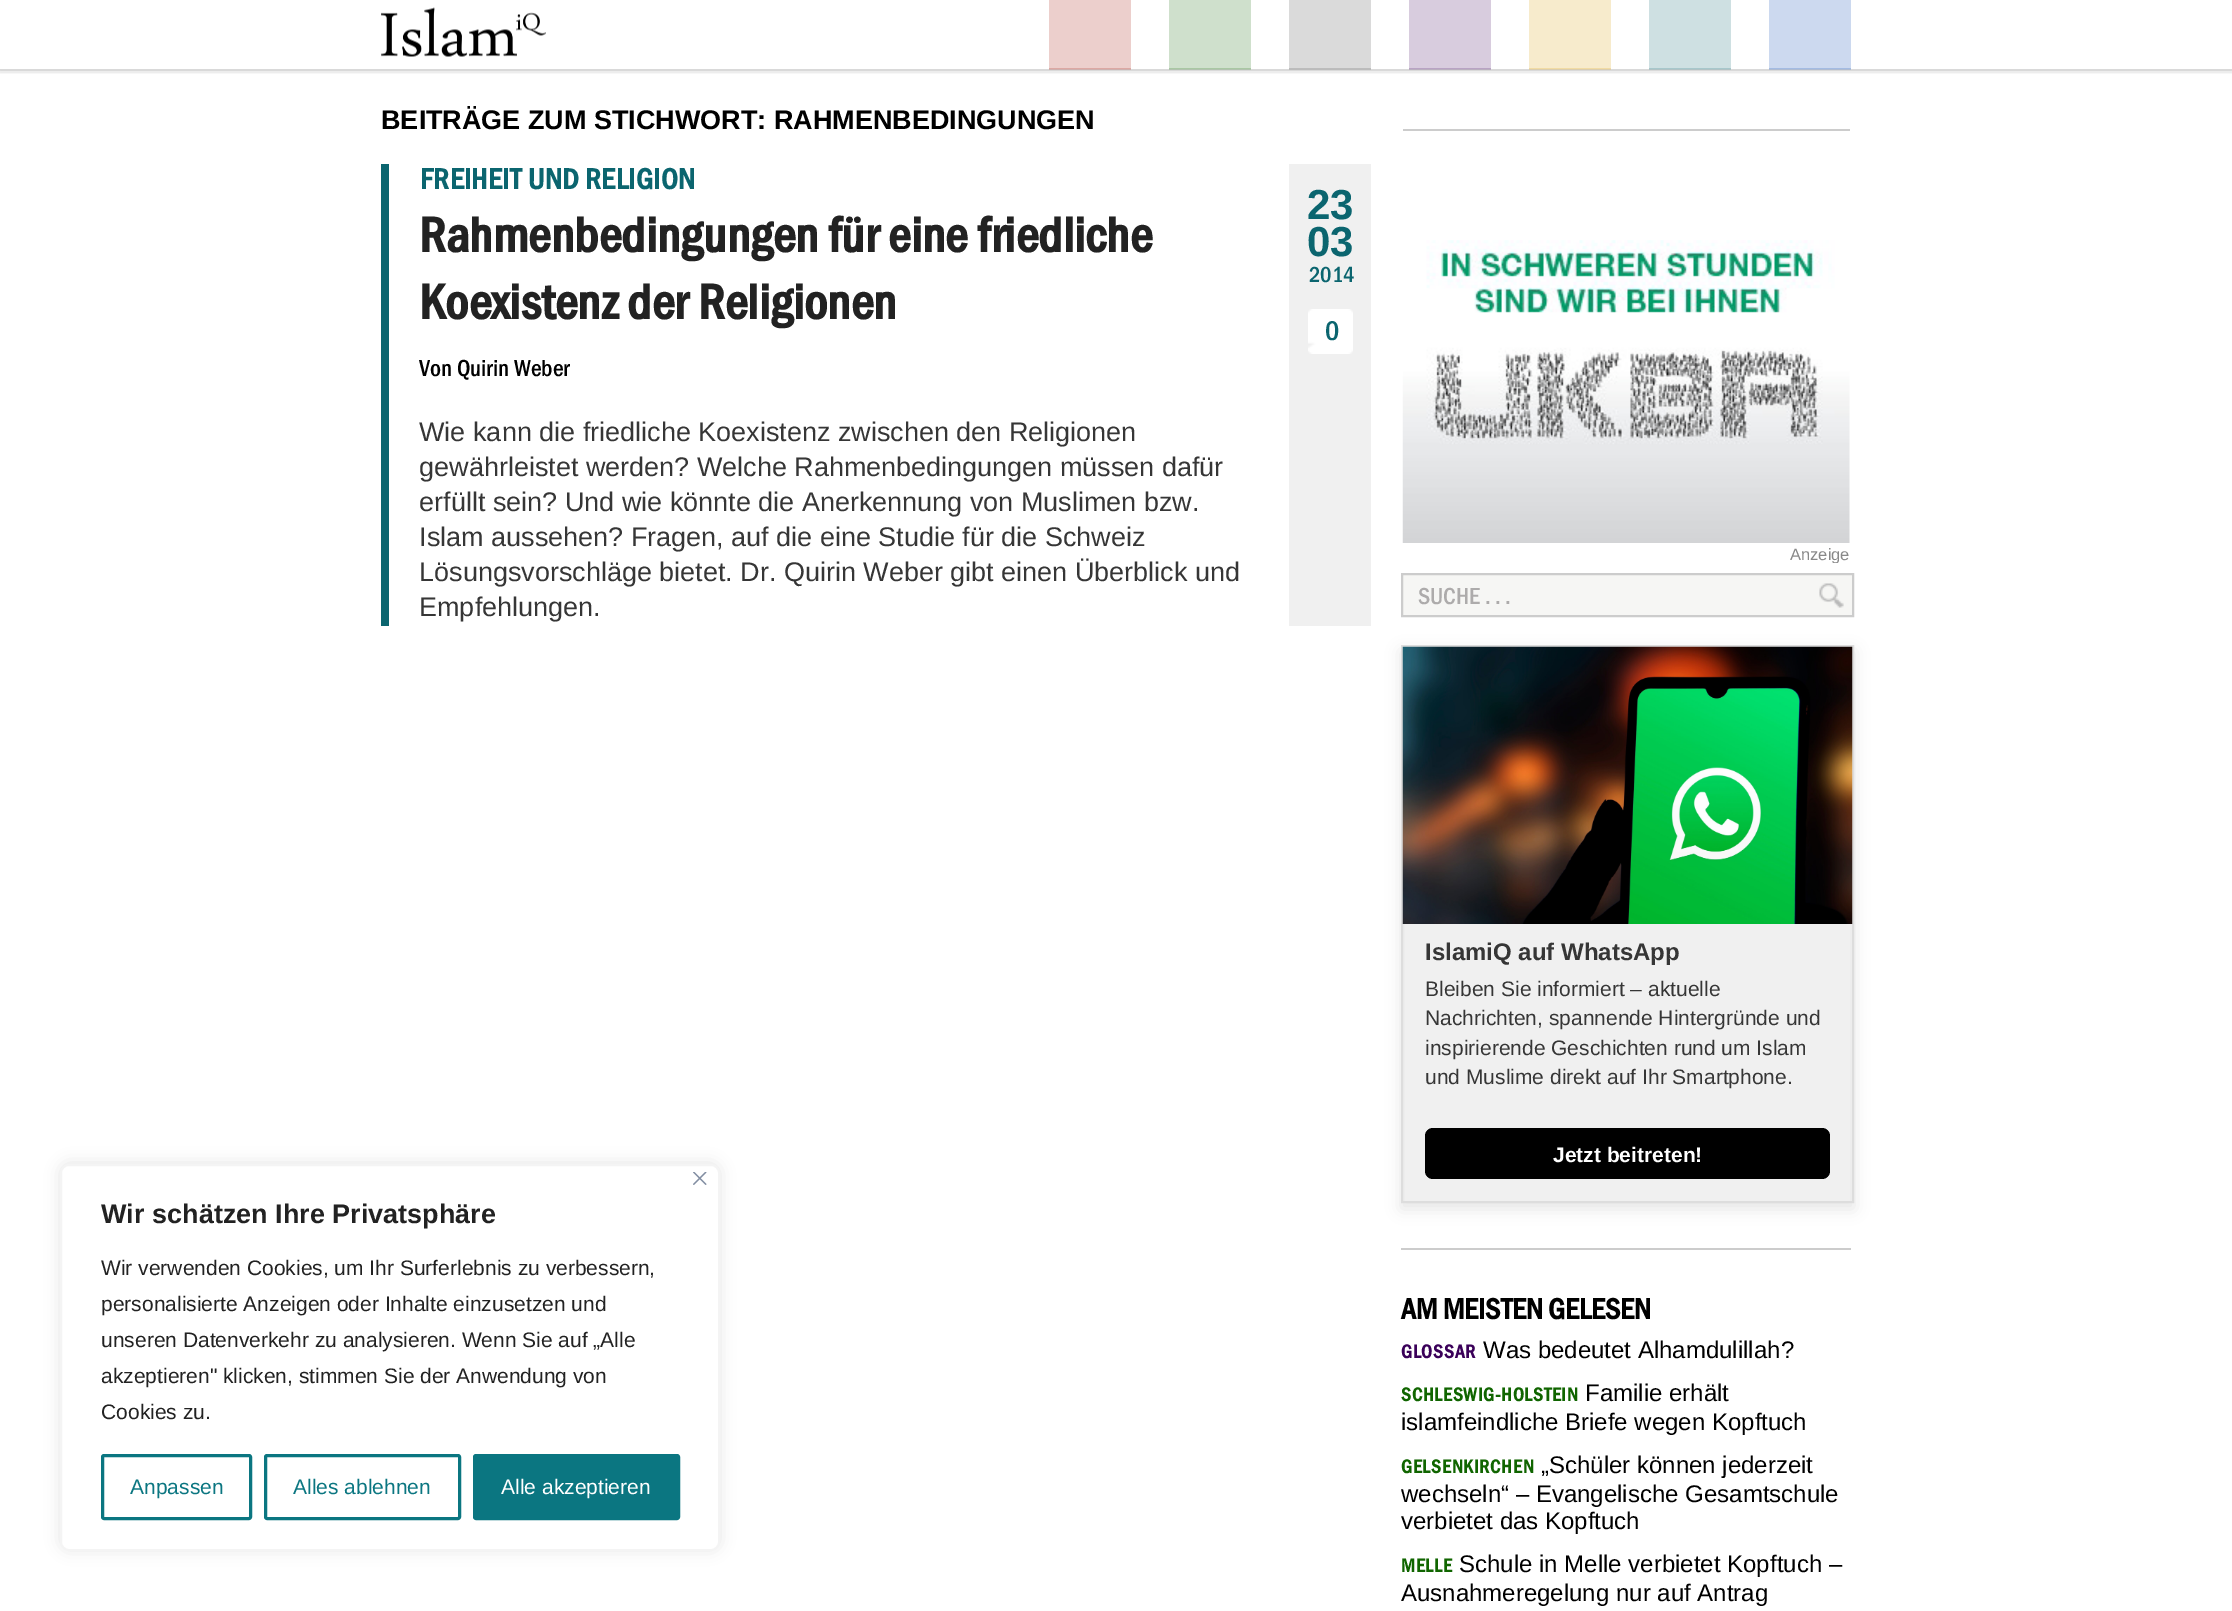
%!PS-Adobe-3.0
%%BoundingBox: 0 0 2232 1611
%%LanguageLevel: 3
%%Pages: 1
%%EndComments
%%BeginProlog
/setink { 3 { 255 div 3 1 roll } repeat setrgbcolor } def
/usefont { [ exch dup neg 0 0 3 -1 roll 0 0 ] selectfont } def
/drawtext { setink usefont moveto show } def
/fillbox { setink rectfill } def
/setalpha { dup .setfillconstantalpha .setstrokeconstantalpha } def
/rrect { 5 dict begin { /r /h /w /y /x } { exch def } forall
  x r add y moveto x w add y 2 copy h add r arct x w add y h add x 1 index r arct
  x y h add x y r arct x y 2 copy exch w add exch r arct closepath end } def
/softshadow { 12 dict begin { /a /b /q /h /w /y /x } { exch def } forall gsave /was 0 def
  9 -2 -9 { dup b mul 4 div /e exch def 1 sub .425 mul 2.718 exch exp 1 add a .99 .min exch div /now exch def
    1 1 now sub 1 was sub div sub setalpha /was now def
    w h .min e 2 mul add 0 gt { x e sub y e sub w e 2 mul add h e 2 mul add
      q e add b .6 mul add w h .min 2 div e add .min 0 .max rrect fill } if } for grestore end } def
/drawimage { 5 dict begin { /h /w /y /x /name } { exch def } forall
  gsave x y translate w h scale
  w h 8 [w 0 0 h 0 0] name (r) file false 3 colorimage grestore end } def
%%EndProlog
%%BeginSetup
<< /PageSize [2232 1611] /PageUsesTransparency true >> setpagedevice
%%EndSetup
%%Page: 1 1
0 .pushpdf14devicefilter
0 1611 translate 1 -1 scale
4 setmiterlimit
0 0 2232 1611 255 255 255 fillbox
gsave
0 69 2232 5 rectclip
0 0 0 setink
0 -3 2232 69 0 4 1 softshadow
grestore
(assets/img1.rgb) 381 7 165 50 drawimage
1049 0 82 69 236 207 204 fillbox
0.2 setalpha
1049 68 82 2 158 14 0 fillbox
1 setalpha
1169 0 82 69 207 224 204 fillbox
0.2 setalpha
1169 68 82 2 16 101 0 fillbox
1 setalpha
1289 0 82 69 218 218 218 fillbox
0.2 setalpha
1289 68 82 2 69 69 69 fillbox
1 setalpha
1409 0 82 69 216 204 222 fillbox
0.2 setalpha
1409 68 82 2 58 0 89 fillbox
1 setalpha
1529 0 82 69 247 235 204 fillbox
0.2 setalpha
1529 68 82 2 216 153 0 fillbox
1 setalpha
1649 0 82 69 206 224 226 fillbox
0.2 setalpha
1649 68 82 2 11 101 111 fillbox
1 setalpha
1769 0 82 69 204 217 239 fillbox
0.2 setalpha
1769 68 82 2 0 66 176 fillbox
1 setalpha
172 171 171 setink
60 1163 660 387 9 7.5 0.3 softshadow
255 255 255 setink
61 1165 658 385 8 rrect gsave fill grestore
244 244 244 setink
2 setlinewidth
stroke
(assets/img2.rgb) 693 1172 14 13 drawimage
(Wir schätzen Ihre Privatsphäre) 101 1223 /LiberationSans-Bold 27 34 34 34 drawtext
(Wir verwenden Cookies, um Ihr Surferlebnis zu verbessern,) 101 1275 /LiberationSans-Regular 21 34 34 34 drawtext
(personalisierte Anzeigen oder Inhalte einzusetzen und) 101 1311 /LiberationSans-Regular 21 34 34 34 drawtext
(unseren Datenverkehr zu analysieren. Wenn Sie auf „Alle) 101 1347 /LiberationSans-Regular 21 34 34 34 drawtext
(akzeptieren" klicken, stimmen Sie der Anwendung von) 101 1383 /LiberationSans-Regular 21 34 34 34 drawtext
(Cookies zu.) 101 1419 /LiberationSans-Regular 21 34 34 34 drawtext
11 118 129 setink
3 setlinewidth
102.5 1455.5 148 63 1.5 rrect stroke
(Anpassen) 130 1494 /LiberationSans-Regular 21 11 118 129 drawtext
265.5 1455.5 194 63 1.5 rrect stroke
(Alles ablehnen) 293 1494 /LiberationSans-Regular 21 11 118 129 drawtext
474.5 1455.5 204 63 1.5 rrect gsave fill grestore
stroke
(Alle akzeptieren) 501 1494 /LiberationSans-Regular 21 255 255 255 drawtext
(BEITRÄGE ZUM STICHWORT: RAHMENBEDINGUNGEN) 381 129 /LiberationSans-Bold 27 0 0 0 drawtext
381 164 8 462 11 101 111 fillbox
/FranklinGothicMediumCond-Bold 30 usefont
420 189 moveto 0.45 0 (FREIHEIT UND RELIGION) ashow
(Rahmenbedingungen für eine friedliche) 419 252 /FranklinGothicMediumCond-Bold 51 34 34 34 drawtext
(Koexistenz der Religionen) 419 319 /FranklinGothicMediumCond-Bold 51 34 34 34 drawtext
(Von Quirin Weber) 419 376 /FranklinGothicMediumCond-Medium 24 0 0 0 drawtext
1289 164 82 462 240 240 240 fillbox
(23) 1307 219 /LiberationSans-Bold 42 11 101 111 drawtext
(03) 1307 256 /LiberationSans-Bold 42 11 101 111 drawtext
(2014) 1309 282 /FranklinGothicMediumCond-Medium 22.5 11 101 111 drawtext
(assets/img3.rgb) 1308 309 45 45 drawimage
(0) 1325 340 /FranklinGothicMediumCond-Medium 28 11 101 111 drawtext
(Wie kann die friedliche Koexistenz zwischen den Religionen) 419 441 /LiberationSans-Regular 27 54 54 54 drawtext
(gewährleistet werden? Welche Rahmenbedingungen müssen dafür) 419 476 /LiberationSans-Regular 27 54 54 54 drawtext
(erfüllt sein? Und wie könnte die Anerkennung von Muslimen bzw.) 419 511 /LiberationSans-Regular 27 54 54 54 drawtext
(Islam aussehen? Fragen, auf die eine Studie für die Schweiz) 419 546 /LiberationSans-Regular 27 54 54 54 drawtext
(Lösungsvorschläge bietet. Dr. Quirin Weber gibt einen Überblick und) 419 581 /LiberationSans-Regular 27 54 54 54 drawtext
(Empfehlungen.) 419 616 /LiberationSans-Regular 27 54 54 54 drawtext
1403 129 447 2 204 204 204 fillbox
(assets/img4.rgb) 1402 240 448 303 drawimage
gsave
1403 99 447 464 rectclip
(Anzeige) 1790 560 /LiberationSans-Regular 16.5 136 136 136 drawtext
grestore
1403 575 449 40 246 246 244 fillbox
(assets/img5.rgb) 1819 583 25 25 drawimage
204 204 204 setink
2 setlinewidth
1402 574 451 42 rectstroke
(SUCHE . . .) 1418 604 /FranklinGothicMediumCond-Medium 24 173 171 171 drawtext
0 0 0 setink
1401 651 453 558 0 7.5 0.1 softshadow
1405 924 445 277 240 240 240 fillbox
221 221 221 setink
1402 646 451 556 rectstroke
(assets/img6.rgb) 1402 646 451 278 drawimage
(IslamiQ auf WhatsApp) 1425 960 /LiberationSans-Bold 24 54 54 54 drawtext
(Bleiben Sie informiert – aktuelle) 1425 996 /LiberationSans-Regular 21 54 54 54 drawtext
(Nachrichten, spannende Hintergründe und) 1425 1025 /LiberationSans-Regular 21 54 54 54 drawtext
(inspirierende Geschichten rund um Islam) 1425 1055 /LiberationSans-Regular 21 54 54 54 drawtext
(und Muslime direkt auf Ihr Smartphone.) 1425 1084 /LiberationSans-Regular 21 54 54 54 drawtext
0 0 0 setink
1425 1128 405 51 8 rrect fill
(Jetzt beitreten!) 1553 1162 /LiberationSans-Bold 21 255 255 255 drawtext
1401 1248 450 2 204 204 204 fillbox
(AM MEISTEN GELESEN) 1401 1319 /FranklinGothicMediumCond-Bold 30 0 0 0 drawtext
/FranklinGothicMediumCond-Bold 19.5 usefont
58 0 89 setink
1401 1358 moveto 0.75 0 (GLOSSAR) ashow
(Was bedeutet Alhamdulillah?) 1483 1358 /LiberationSans-Regular 24 0 0 0 drawtext
/FranklinGothicMediumCond-Bold 19.5 usefont
16 101 0 setink
1401 1401 moveto 0.75 0 (SCHLESWIG-HOLSTEIN) ashow
(Familie erhält) 1585 1401 /LiberationSans-Regular 24 0 0 0 drawtext
(islamfeindliche Briefe wegen Kopftuch) 1401 1430 /LiberationSans-Regular 24 0 0 0 drawtext
/FranklinGothicMediumCond-Bold 19.5 usefont
16 101 0 setink
1401 1473 moveto 0.75 0 (GELSENKIRCHEN) ashow
(„Schüler können jederzeit) 1541 1473 /LiberationSans-Regular 24 0 0 0 drawtext
(wechseln“ – Evangelische Gesamtschule) 1401 1502 /LiberationSans-Regular 24 0 0 0 drawtext
(verbietet das Kopftuch) 1401 1529 /LiberationSans-Regular 24 0 0 0 drawtext
/FranklinGothicMediumCond-Bold 19.5 usefont
16 101 0 setink
1401 1572 moveto 0.75 0 (MELLE) ashow
(Schule in Melle verbietet Kopftuch –) 1459 1572 /LiberationSans-Regular 24 0 0 0 drawtext
(Ausnahmeregelung nur auf Antrag) 1401 1601 /LiberationSans-Regular 24 0 0 0 drawtext
.poppdf14devicefilter showpage
%%EOF
